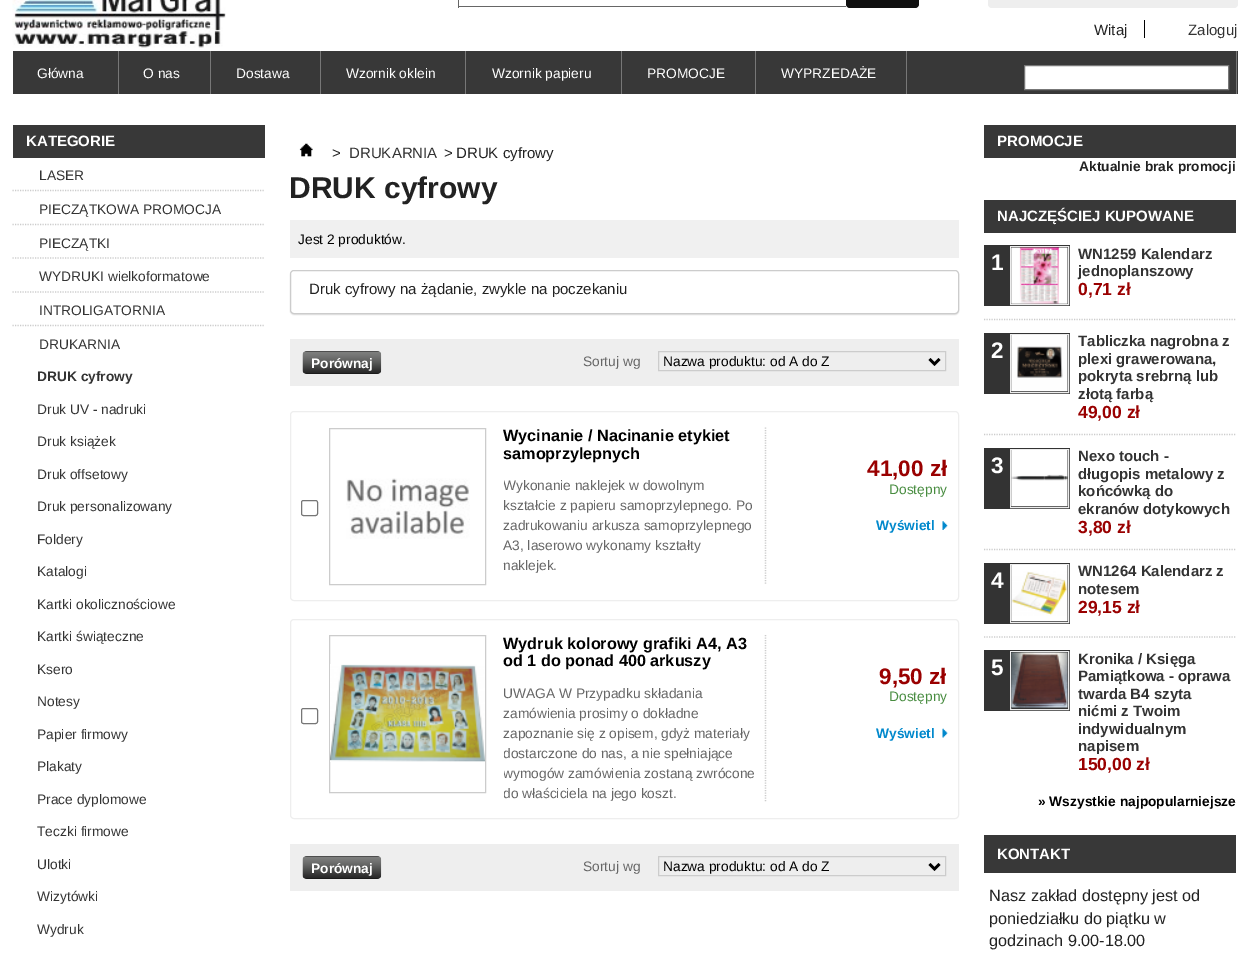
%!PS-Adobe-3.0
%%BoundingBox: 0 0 1248 960
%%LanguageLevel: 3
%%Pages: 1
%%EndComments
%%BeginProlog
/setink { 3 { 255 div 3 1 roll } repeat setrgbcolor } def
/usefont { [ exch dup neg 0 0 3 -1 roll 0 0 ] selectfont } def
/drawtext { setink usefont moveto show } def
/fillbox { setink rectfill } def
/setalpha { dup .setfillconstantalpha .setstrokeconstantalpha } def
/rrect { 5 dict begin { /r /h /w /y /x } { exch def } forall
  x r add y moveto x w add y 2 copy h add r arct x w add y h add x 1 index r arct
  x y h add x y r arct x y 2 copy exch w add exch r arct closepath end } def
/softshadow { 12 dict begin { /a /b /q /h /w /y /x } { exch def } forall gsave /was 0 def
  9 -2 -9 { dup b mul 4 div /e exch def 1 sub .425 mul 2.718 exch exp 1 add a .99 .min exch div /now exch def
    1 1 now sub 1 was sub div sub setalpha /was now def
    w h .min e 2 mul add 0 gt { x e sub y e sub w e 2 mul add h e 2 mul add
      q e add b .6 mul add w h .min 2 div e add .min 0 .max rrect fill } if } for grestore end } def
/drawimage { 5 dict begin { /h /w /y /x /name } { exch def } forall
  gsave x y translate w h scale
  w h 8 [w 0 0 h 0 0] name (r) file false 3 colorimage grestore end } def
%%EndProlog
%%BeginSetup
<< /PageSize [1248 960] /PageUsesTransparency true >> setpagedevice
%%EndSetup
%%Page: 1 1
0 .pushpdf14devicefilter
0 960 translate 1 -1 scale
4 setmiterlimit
0 0 1248 960 255 255 255 fillbox
(assets/img1.rgb) 12 0 214 48 drawimage
458 6 388 1 102 102 102 fillbox
458 0 1 8 102 102 102 fillbox
16 16 16 setink
846 -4 73 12 4 rrect fill
238 238 238 setink
988 -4 250 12 4 rrect fill
(Witaj) 1094 35 /LiberationSans-Regular 15 34 34 34 drawtext
1144 20 1 18 0 0 0 fillbox
(Zaloguj) 1188 35 /LiberationSans-Regular 15 51 51 51 drawtext
13 51 1225 43 56 56 56 fillbox
118 51 1 43 119 119 119 fillbox
(Główna) 37 78 /LiberationSans-Regular 13.75 255 255 255 drawtext
210 51 1 43 119 119 119 fillbox
(O nas) 143 78 /LiberationSans-Regular 13.75 255 255 255 drawtext
320 51 1 43 119 119 119 fillbox
(Dostawa) 236 78 /LiberationSans-Regular 13.75 255 255 255 drawtext
465 51 1 43 119 119 119 fillbox
(Wzornik oklein) 346 78 /LiberationSans-Regular 13.75 255 255 255 drawtext
621 51 1 43 119 119 119 fillbox
(Wzornik papieru) 492 78 /LiberationSans-Regular 13.75 255 255 255 drawtext
755 51 1 43 119 119 119 fillbox
(PROMOCJE) 647 78 /LiberationSans-Regular 13.75 255 255 255 drawtext
906 51 1 43 119 119 119 fillbox
(WYPRZEDAŻE) 781 78 /LiberationSans-Regular 13.75 255 255 255 drawtext
1236 51 1 43 119 119 119 fillbox
255 255 255 setink
1024.5 65.5 moveto 1228.5 65.5 lineto 1228.5 89.5 lineto 1024.5 89.5 lineto closepath gsave fill grestore
119 119 119 setink
stroke
13 125 252 33 56 56 56 fillbox
(KATEGORIE) 26 146 /LiberationSans-Bold 15 255 255 255 drawtext
204 204 204 setink
1.2 setlinewidth
[1.25 1.25] 0 setdash
12.5 190.5 moveto 265 190.5 lineto stroke
(LASER) 39 180 /LiberationSans-Regular 13.75 51 51 51 drawtext
204 204 204 setink
12.5 224.5 moveto 265 224.5 lineto stroke
(PIECZĄTKOWA PROMOCJA) 39 214 /LiberationSans-Regular 13.75 51 51 51 drawtext
204 204 204 setink
12.5 258 moveto 265 258 lineto stroke
(PIECZĄTKI) 39 248 /LiberationSans-Regular 13.75 51 51 51 drawtext
204 204 204 setink
12.5 292 moveto 265 292 lineto stroke
(WYDRUKI wielkoformatowe) 39 281 /LiberationSans-Regular 13.75 51 51 51 drawtext
204 204 204 setink
12.5 325.5 moveto 265 325.5 lineto stroke
(INTROLIGATORNIA) 39 315 /LiberationSans-Regular 13.75 51 51 51 drawtext
(DRUKARNIA) 39 349 /LiberationSans-Regular 13.75 51 51 51 drawtext
(DRUK cyfrowy) 37 381 /LiberationSans-Bold 13.75 51 51 51 drawtext
(Druk UV - nadruki) 37 414 /LiberationSans-Regular 13.75 51 51 51 drawtext
(Druk książek) 37 446 /LiberationSans-Regular 13.75 51 51 51 drawtext
(Druk offsetowy) 37 479 /LiberationSans-Regular 13.75 51 51 51 drawtext
(Druk personalizowany) 37 511 /LiberationSans-Regular 13.75 51 51 51 drawtext
(Foldery) 37 544 /LiberationSans-Regular 13.75 51 51 51 drawtext
(Katalogi) 37 576 /LiberationSans-Regular 13.75 51 51 51 drawtext
(Kartki okolicznościowe) 37 609 /LiberationSans-Regular 13.75 51 51 51 drawtext
(Kartki świąteczne) 37 641 /LiberationSans-Regular 13.75 51 51 51 drawtext
(Ksero) 37 674 /LiberationSans-Regular 13.75 51 51 51 drawtext
(Notesy) 37 706 /LiberationSans-Regular 13.75 51 51 51 drawtext
(Papier firmowy) 37 739 /LiberationSans-Regular 13.75 51 51 51 drawtext
(Plakaty) 37 771 /LiberationSans-Regular 13.75 51 51 51 drawtext
(Prace dyplomowe) 37 804 /LiberationSans-Regular 13.75 51 51 51 drawtext
(Teczki firmowe) 37 836 /LiberationSans-Regular 13.75 51 51 51 drawtext
(Ulotki) 37 869 /LiberationSans-Regular 13.75 51 51 51 drawtext
(Wizytówki) 37 901 /LiberationSans-Regular 13.75 51 51 51 drawtext
(Wydruk) 37 934 /LiberationSans-Regular 13.75 51 51 51 drawtext
(assets/img2.rgb) 299 143 14 14 drawimage
(>) 332 158 /LiberationSans-Regular 15 34 34 34 drawtext
(DRUKARNIA) 349 158 /LiberationSans-Regular 15 51 51 51 drawtext
(>) 444 158 /LiberationSans-Regular 15 34 34 34 drawtext
(DRUK cyfrowy) 456 158 /LiberationSans-Regular 15 34 34 34 drawtext
(DRUK cyfrowy) 289 198 /LiberationSans-Bold 30 34 34 34 drawtext
290 220 669 38 240 240 240 fillbox
(Jest 2 produktów.) 298 244 /LiberationSans-Regular 13.75 0 0 0 drawtext
gsave
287 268 moveto 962 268 lineto 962 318 lineto 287 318 lineto closepath 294 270 moveto 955 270 lineto 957 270 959 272 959 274 curveto 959 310 lineto 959 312 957 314 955 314 curveto 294 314 lineto 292 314 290 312 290 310 curveto 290 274 lineto 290 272 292 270 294 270 curveto closepath eoclip newpath
226 226 226 setink
290 271 669 44 4 0.5 1 softshadow
grestore
204 204 204 setink
1 setlinewidth
[] 0 setdash
290.5 270.5 668 43 3.5 rrect stroke
(Druk cyfrowy na żądanie, zwykle na poczekaniu) 309 294 /LiberationSans-Regular 15 34 34 34 drawtext
290 339 669 47 238 238 238 fillbox
17 17 17 setink
303 351 78 23 4 rrect fill
(assets/img3.rgb) 302 351 80 23 drawimage
(Porównaj) 311 368 /LiberationSans-Bold 13.75 255 255 255 drawtext
(Sortuj wg) 583 366 /LiberationSans-Regular 13.75 102 102 102 drawtext
204 204 204 setink
658.5 351.5 287 19 rectstroke
0 0 0 setink
2.5 setlinewidth
929.5 359 moveto 934.5 364 lineto 939.5 359 lineto stroke
(Nazwa produktu: od A do Z) 663 366 /LiberationSans-Regular 13.75 0 0 0 drawtext
238 238 238 setink
1 setlinewidth
290.5 411.5 668 189 3.5 rrect stroke
118 118 118 setink
301.5 500.5 16 15 2 rrect stroke
204 204 204 setink
1.2 setlinewidth
[1.25 1.25] 0 setdash
765.5 427.5 moveto 765.5 585 lineto stroke
1 setlinewidth
[] 0 setdash
329.5 428.5 156 156 rectstroke
(assets/img4.rgb) 346 478 124 61 drawimage
(Wycinanie / Nacinanie etykiet) 503 441 /LiberationSans-Bold 16.25 0 0 0 drawtext
(samoprzylepnych) 503 459 /LiberationSans-Bold 16.25 0 0 0 drawtext
gsave
504 475 252 100 rectclip
(Wykonanie naklejek w dowolnym) 503 490 /LiberationSans-Regular 13.75 102 102 102 drawtext
grestore
(kształcie z papieru samoprzylepnego. Po) 503 510 /LiberationSans-Regular 13.75 102 102 102 drawtext
(zadrukowaniu arkusza samoprzylepnego) 503 530 /LiberationSans-Regular 13.75 102 102 102 drawtext
(A3, laserowo wykonamy kształty) 503 550 /LiberationSans-Regular 13.75 102 102 102 drawtext
(naklejek.) 503 570 /LiberationSans-Regular 13.75 102 102 102 drawtext
(41,00 zł) 867 476 /LiberationSans-Bold 22.5 153 0 0 drawtext
(Dostępny) 889 494 /LiberationSans-Regular 13.75 72 140 64 drawtext
(assets/img5.rgb) 942 521 6 9 drawimage
(Wyświetl) 876 530 /LiberationSans-Bold 13.75 0 136 204 drawtext
238 238 238 setink
290.5 619.5 668 199 3.5 rrect stroke
118 118 118 setink
301.5 708.5 16 15 2 rrect stroke
204 204 204 setink
1.2 setlinewidth
[1.25 1.25] 0 setdash
765.5 635 moveto 765.5 802.5 lineto stroke
1 setlinewidth
[] 0 setdash
329.5 635.5 156 157 rectstroke
(assets/img6.rgb) 330 664 155 98 drawimage
(Wydruk kolorowy grafiki A4, A3) 503 649 /LiberationSans-Bold 16.25 0 0 0 drawtext
(od 1 do ponad 400 arkuszy) 503 666 /LiberationSans-Bold 16.25 0 0 0 drawtext
(UWAGA W Przypadku składania) 503 698 /LiberationSans-Regular 13.75 102 102 102 drawtext
(zamówienia prosimy o dokładne) 503 718 /LiberationSans-Regular 13.75 102 102 102 drawtext
(zapoznanie się z opisem, gdyż materiały) 503 738 /LiberationSans-Regular 13.75 102 102 102 drawtext
gsave
504 683 252 120 rectclip
(dostarczone do nas, a nie spełniające) 503 758 /LiberationSans-Regular 13.75 102 102 102 drawtext
(wymogów zamówienia zostaną zwrócone) 503 778 /LiberationSans-Regular 13.75 102 102 102 drawtext
(do właściciela na jego koszt.) 503 798 /LiberationSans-Regular 13.75 102 102 102 drawtext
grestore
(9,50 zł) 879 684 /LiberationSans-Bold 22.5 153 0 0 drawtext
(Dostępny) 889 701 /LiberationSans-Regular 13.75 72 140 64 drawtext
(assets/img7.rgb) 942 728 6 10 drawimage
(Wyświetl) 876 738 /LiberationSans-Bold 13.75 0 136 204 drawtext
290 844 669 47 238 238 238 fillbox
17 17 17 setink
303 856 78 23 4 rrect fill
(assets/img3.rgb) 302 856 80 23 drawimage
(Porównaj) 311 873 /LiberationSans-Bold 13.75 255 255 255 drawtext
(Sortuj wg) 583 871 /LiberationSans-Regular 13.75 102 102 102 drawtext
204 204 204 setink
658.5 856.5 287 19 rectstroke
0 0 0 setink
2.5 setlinewidth
929.5 864 moveto 934.5 869 lineto 939.5 864 lineto stroke
(Nazwa produktu: od A do Z) 663 871 /LiberationSans-Regular 13.75 0 0 0 drawtext
984 125 252 33 56 56 56 fillbox
(PROMOCJE) 997 146 /LiberationSans-Bold 15 255 255 255 drawtext
(Aktualnie brak promocji) 1079 171 /LiberationSans-Bold 13.75 34 34 34 drawtext
984 200 252 33 56 56 56 fillbox
(NAJCZĘŚCIEJ KUPOWANE) 997 221 /LiberationSans-Bold 15 255 255 255 drawtext
204 204 204 setink
1.2 setlinewidth
[1.25 1.25] 0 setdash
984 319.5 moveto 1236 319.5 lineto stroke
984 245 86 61 51 51 51 fillbox
237 237 237 setink
1 setlinewidth
[] 0 setdash
1010.5 246.5 58 58 rectstroke
(1) 991 270 /LiberationSans-Bold 22.5 255 255 255 drawtext
(assets/img8.rgb) 1011 247 57 57 drawimage
(WN1259 Kalendarz) 1078 259 /LiberationSans-Bold 15 51 51 51 drawtext
(jednoplanszowy) 1078 276 /LiberationSans-Bold 15 51 51 51 drawtext
(0,71 zł) 1078 295 /LiberationSans-Bold 17.5 153 0 0 drawtext
204 204 204 setink
1.2 setlinewidth
[1.25 1.25] 0 setdash
984 434.5 moveto 1236 434.5 lineto stroke
984 333 86 61 51 51 51 fillbox
237 237 237 setink
1 setlinewidth
[] 0 setdash
1010.5 334.5 58 58 rectstroke
(2) 991 358 /LiberationSans-Bold 22.5 255 255 255 drawtext
(assets/img9.rgb) 1011 335 57 57 drawimage
(Tabliczka nagrobna z) 1078 346 /LiberationSans-Bold 15 51 51 51 drawtext
(plexi grawerowana,) 1078 364 /LiberationSans-Bold 15 51 51 51 drawtext
(pokryta srebrną lub) 1078 381 /LiberationSans-Bold 15 51 51 51 drawtext
(złotą farbą) 1078 399 /LiberationSans-Bold 15 51 51 51 drawtext
(49,00 zł) 1078 418 /LiberationSans-Bold 17.5 153 0 0 drawtext
204 204 204 setink
1.2 setlinewidth
[1.25 1.25] 0 setdash
984 549.5 moveto 1236 549.5 lineto stroke
984 448 86 61 51 51 51 fillbox
237 237 237 setink
1 setlinewidth
[] 0 setdash
1010.5 449.5 58 58 rectstroke
(3) 991 473 /LiberationSans-Bold 22.5 255 255 255 drawtext
(assets/img10.rgb) 1011 450 57 57 drawimage
(Nexo touch -) 1078 461 /LiberationSans-Bold 15 51 51 51 drawtext
(długopis metalowy z) 1078 479 /LiberationSans-Bold 15 51 51 51 drawtext
(końcówką do) 1078 496 /LiberationSans-Bold 15 51 51 51 drawtext
(ekranów dotykowych) 1078 514 /LiberationSans-Bold 15 51 51 51 drawtext
(3,80 zł) 1078 533 /LiberationSans-Bold 17.5 153 0 0 drawtext
204 204 204 setink
1.2 setlinewidth
[1.25 1.25] 0 setdash
984 637 moveto 1236 637 lineto stroke
984 563 86 61 51 51 51 fillbox
237 237 237 setink
1 setlinewidth
[] 0 setdash
1010.5 564.5 58 58 rectstroke
(4) 991 588 /LiberationSans-Bold 22.5 255 255 255 drawtext
(assets/img11.rgb) 1011 565 57 57 drawimage
(WN1264 Kalendarz z) 1078 576 /LiberationSans-Bold 15 51 51 51 drawtext
(notesem) 1078 594 /LiberationSans-Bold 15 51 51 51 drawtext
(29,15 zł) 1078 613 /LiberationSans-Bold 17.5 153 0 0 drawtext
984 650 86 61 51 51 51 fillbox
237 237 237 setink
1010.5 651.5 58 58 rectstroke
(5) 991 675 /LiberationSans-Bold 22.5 255 255 255 drawtext
(assets/img12.rgb) 1011 652 57 56 drawimage
(Kronika / Księga) 1078 664 /LiberationSans-Bold 15 51 51 51 drawtext
(Pamiątkowa - oprawa) 1078 681 /LiberationSans-Bold 15 51 51 51 drawtext
(twarda B4 szyta) 1078 699 /LiberationSans-Bold 15 51 51 51 drawtext
(nićmi z Twoim) 1078 716 /LiberationSans-Bold 15 51 51 51 drawtext
(indywidualnym) 1078 734 /LiberationSans-Bold 15 51 51 51 drawtext
(napisem) 1078 751 /LiberationSans-Bold 15 51 51 51 drawtext
(150,00 zł) 1078 770 /LiberationSans-Bold 17.5 153 0 0 drawtext
(» Wszystkie najpopularniejsze) 1038 806 /LiberationSans-Bold 13.75 0 0 0 drawtext
984 835 252 38 56 56 56 fillbox
(KONTAKT) 997 859 /LiberationSans-Bold 15 255 255 255 drawtext
(Nasz zakład dostępny jest od) 989 901 /LiberationSans-Regular 16.25 34 34 34 drawtext
(poniedziałku do piątku w) 989 924 /LiberationSans-Regular 16.25 34 34 34 drawtext
(godzinach 9.00-18.00) 989 946 /LiberationSans-Regular 16.25 34 34 34 drawtext
.poppdf14devicefilter showpage
%%EOF
